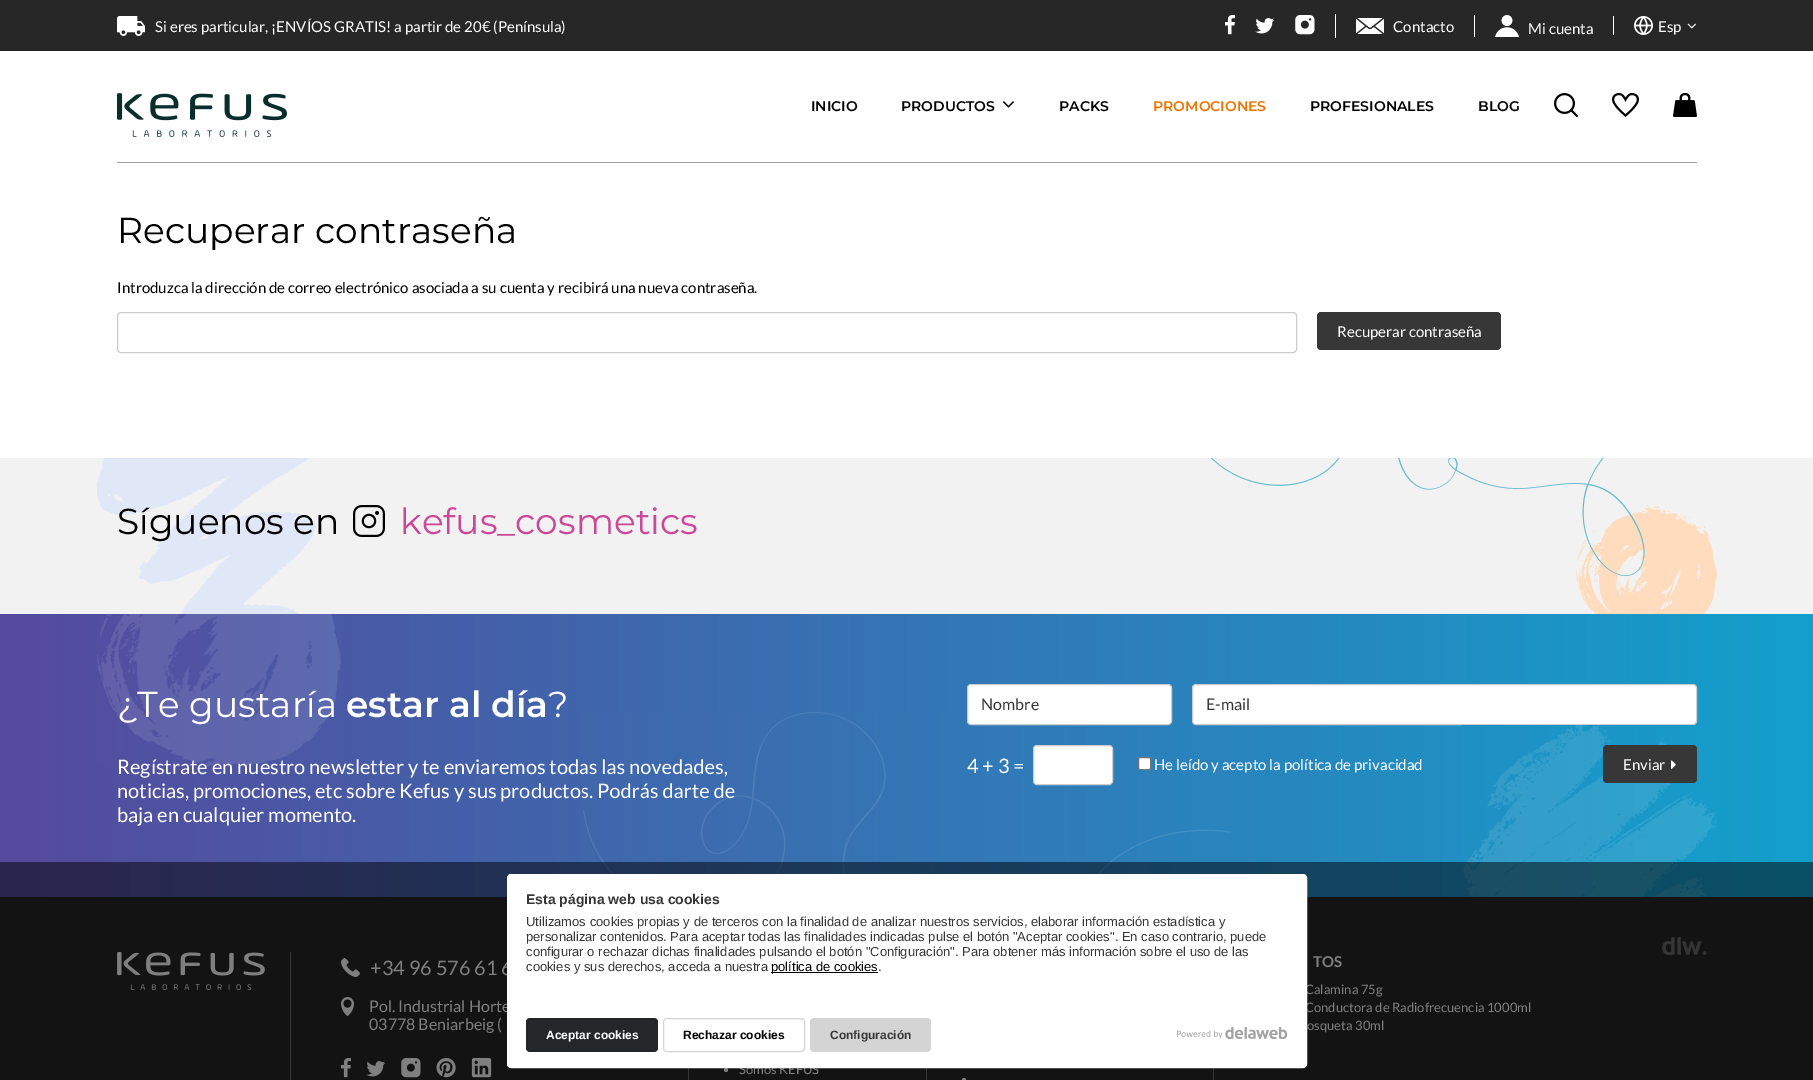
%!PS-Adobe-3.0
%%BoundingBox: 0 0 1813 1080
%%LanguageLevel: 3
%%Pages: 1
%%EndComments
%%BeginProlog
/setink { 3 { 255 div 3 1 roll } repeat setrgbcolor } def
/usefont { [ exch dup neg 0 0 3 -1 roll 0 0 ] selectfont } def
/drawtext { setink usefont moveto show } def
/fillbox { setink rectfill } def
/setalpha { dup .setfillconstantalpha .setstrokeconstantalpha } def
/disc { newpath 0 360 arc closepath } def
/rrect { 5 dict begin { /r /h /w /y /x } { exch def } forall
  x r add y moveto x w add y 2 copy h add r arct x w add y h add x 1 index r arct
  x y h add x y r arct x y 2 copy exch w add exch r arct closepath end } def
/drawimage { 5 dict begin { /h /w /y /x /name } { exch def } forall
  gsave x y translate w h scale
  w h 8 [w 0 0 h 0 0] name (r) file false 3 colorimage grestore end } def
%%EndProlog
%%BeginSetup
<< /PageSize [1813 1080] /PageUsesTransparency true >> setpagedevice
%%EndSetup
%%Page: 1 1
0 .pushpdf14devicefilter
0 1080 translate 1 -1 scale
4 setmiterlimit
0 0 1813 1080 255 255 255 fillbox
0 0 1813 51 39 39 39 fillbox
(assets/img1.rgb) 117 16 28 20 drawimage
(Si eres particular, ¡ENVÍOS GRATIS! a partir de 20€ \(Península\)) 155 32 /Lato-Regular 15 255 255 255 drawtext
(assets/img2.rgb) 1225 15 10 20 drawimage
(assets/img3.rgb) 1255 18 20 16 drawimage
(assets/img4.rgb) 1295 15 20 20 drawimage
1335 14 1 24 255 255 255 fillbox
(assets/img5.rgb) 1356 18 28 16 drawimage
(Contacto) 1393 32 /Lato-Regular 15 255 255 255 drawtext
1474 15 1 22 255 255 255 fillbox
(assets/img6.rgb) 1495 15 24 22 drawimage
(Mi cuenta) 1528 34 /Lato-Regular 15 255 255 255 drawtext
1613 16 1 19 255 255 255 fillbox
(assets/img7.rgb) 1634 16 19 19 drawimage
(Esp) 1658 32 /Lato-Regular 15 255 255 255 drawtext
(assets/img8.rgb) 1687 23 9 6 drawimage
117 162 1580 1 161 161 162 fillbox
(assets/img9.rgb) 117 93 170 44 drawimage
(INICIO) 811 111 /Montserrat-SemiBold 14 0 0 0 drawtext
(PRODUCTOS) 901 111 /Montserrat-SemiBold 14 0 0 0 drawtext
(assets/img10.rgb) 1002 101 12 7 drawimage
(PACKS) 1059 111 /Montserrat-SemiBold 14 0 0 0 drawtext
(PROMOCIONES) 1153 111 /Montserrat-SemiBold 14 240 115 0 drawtext
(PROFESIONALES) 1310 111 /Montserrat-SemiBold 14 0 0 0 drawtext
(BLOG) 1478 111 /Montserrat-SemiBold 14 0 0 0 drawtext
(assets/img11.rgb) 1554 93 24 24 drawimage
(assets/img12.rgb) 1612 93 27 24 drawimage
(assets/img13.rgb) 1673 93 24 24 drawimage
(Recuperar contraseña) 117 243 /Montserrat-Regular 36 0 0 0 drawtext
(Introduzca la dirección de correo electrónico asociada a su cuenta y recibirá una nueva contraseña.) 117 293 /Lato-Regular 15 0 0 0 drawtext
204 204 204 setink
117.5 312.5 1179 40 3.5 rrect stroke
55 55 55 setink
1317 312 184 38 4 rrect fill
(Recuperar contraseña) 1337 337 /Lato-Regular 15 255 255 255 drawtext
0 458 1813 156 242 242 242 fillbox
(assets/img14.rgb) 97 458 220 156 drawimage
(Síguenos en) 117 534 /Montserrat-Regular 36 0 0 0 drawtext
(assets/img15.rgb) 353 505 32 32 drawimage
(kefus_cosmetics) 400 534 /Montserrat-Regular 36 204 71 151 drawtext
(assets/img17.rgb) 1576 505 141 109 drawimage
(assets/img16.rgb) 1210 458 435 118 drawimage
gsave 0 614 moveto 1813 614 lineto 1813 897 lineto 0 897 lineto closepath clip newpath
<< /ShadingType 2 /ColorSpace /DeviceRGB /Coords [0 756 1813 756] /Extend [true true] /Function << /FunctionType 2 /Domain [0 1] /C0 [0.337 0.29 0.616] /C1 [0.075 0.627 0.8] /N 1 >> >> shfill grestore
(assets/img18.rgb) 97 614 244 152 drawimage
(¿Te gustaría) 117 717 /Montserrat-Regular 36 255 255 255 drawtext
(estar al día) 346 717 /Montserrat-SemiBold 36 255 255 255 drawtext
(?) 548 717 /Montserrat-Regular 36 255 255 255 drawtext
(Regístrate en nuestro newsletter y te enviaremos todas las novedades,) 117 774 /Lato-Regular 20 255 255 255 drawtext
(noticias, promociones, etc sobre Kefus y sus productos. Podrás darte de) 117 798 /Lato-Regular 20 255 255 255 drawtext
(baja en cualquier momento.) 117 822 /Lato-Regular 20 255 255 255 drawtext
(assets/img20.rgb) 583 712 648 162 drawimage
967.5 684.5 204 40 3.5 rrect gsave fill grestore
204 204 204 setink
stroke
(Nombre) 981 710 /Lato-Regular 16 54 54 54 drawtext
255 255 255 setink
1192.5 684.5 504 40 3.5 rrect gsave fill grestore
204 204 204 setink
stroke
(E-mail) 1206 710 /Lato-Regular 16 54 54 54 drawtext
(4 + 3 =) 967 773 /Lato-Regular 20 255 255 255 drawtext
1033.5 745.5 79 39 3.5 rrect gsave fill grestore
204 204 204 setink
stroke
255 255 255 setink
1138.5 757.5 12 12 1.5 rrect gsave fill grestore
118 118 118 setink
stroke
(He leído y acepto la política de privacidad) 1154 770 /Lato-Regular 15 255 255 255 drawtext
(assets/img21.rgb) 1462 725 255 172 drawimage
55 55 55 setink
1603 745 94 38 4 rrect fill
(Enviar) 1623 770 /Lato-Regular 15 255 255 255 drawtext
(assets/img19.rgb) 1671 760 5 9 drawimage
0 897 1813 183 39 39 39 fillbox
(assets/img23.rgb) 1662 937 45 18 drawimage
(assets/img24.rgb) 117 952 148 38 drawimage
290 952 1 128 105 105 105 fillbox
(assets/img25.rgb) 341 958 19 19 drawimage
(+34 96 576 61 6) 370 975 /Lato-Regular 20 255 255 255 drawtext
(assets/img26.rgb) 341 997 13 19 drawimage
(Pol. Industrial Horte) 369 1012 /Lato-Regular 16 255 255 255 drawtext
(03778 Beniarbeig \() 369 1030 /Lato-Regular 16 255 255 255 drawtext
(assets/img2.rgb) 341 1058 10 20 drawimage
(assets/img3.rgb) 366 1061 20 16 drawimage
(assets/img4.rgb) 401 1058 20 20 drawimage
(assets/img27.rgb) 436 1058 20 20 drawimage
(assets/img28.rgb) 471 1058 21 20 drawimage
1213 1068 1 12 105 105 105 fillbox
(TOS) 1313 967 /Lato-Bold 15 255 255 255 drawtext
(Calamina 75g) 1305 994 /Lato-Regular 13 255 255 255 drawtext
(Conductora de Radiofrecuencia 1000ml) 1305 1012 /Lato-Regular 13 255 255 255 drawtext
(osqueta 30ml) 1307 1030 /Lato-Regular 13 255 255 255 drawtext
688 1068 1 12 105 105 105 fillbox
255 255 255 setink
726 1070 2 disc fill
(Somos KEFUS) 739 1074 /Lato-Regular 13 255 255 255 drawtext
926 1068 1 12 105 105 105 fillbox
255 255 255 setink
964 1080 2 disc fill
0.5 setalpha
0 862 1813 218 0 0 0 fillbox
1 setalpha
255 255 255 setink
507.5 874.5 799 193 3.5 rrect gsave fill grestore
stroke
(Esta página web usa cookies) 526 904 /LiberationSans-Bold 14 54 54 54 drawtext
(Utilizamos cookies propias y de terceros con la finalidad de analizar nuestros servicios, elaborar información estadística y) 526 926 /LiberationSans-Regular 13 54 54 54 drawtext
(personalizar contenidos. Para aceptar todas las finalidades indicadas pulse el botón "Aceptar cookies". En caso contrario, puede) 526 941 /LiberationSans-Regular 13 54 54 54 drawtext
(configurar o rechazar dichas finalidades pulsando el botón "Configuración". Para obtener más información sobre el uso de las) 526 956 /LiberationSans-Regular 13 54 54 54 drawtext
(cookies y sus derechos, acceda a nuestra) 526 971 /LiberationSans-Regular 13 54 54 54 drawtext
771 972 107 1 0 0 0 fillbox
(política de cookies) 771 971 /LiberationSans-Regular 13 0 0 0 drawtext
(.) 878 971 /LiberationSans-Regular 13 54 54 54 drawtext
36 39 42 setink
526 1018 132 34 4 rrect fill
(Aceptar cookies) 546 1039 /LiberationSans-Bold 12 255 255 255 drawtext
212 212 212 setink
663.5 1018.5 141 33 3.5 rrect stroke
(Rechazar cookies) 683 1039 /LiberationSans-Bold 12 0 0 0 drawtext
212 212 212 setink
810 1018 121 34 4 rrect fill
(Configuración) 830 1039 /LiberationSans-Bold 12 54 54 54 drawtext
(assets/img22.rgb) 1177 1027 111 12 drawimage
.poppdf14devicefilter showpage
%%EOF
